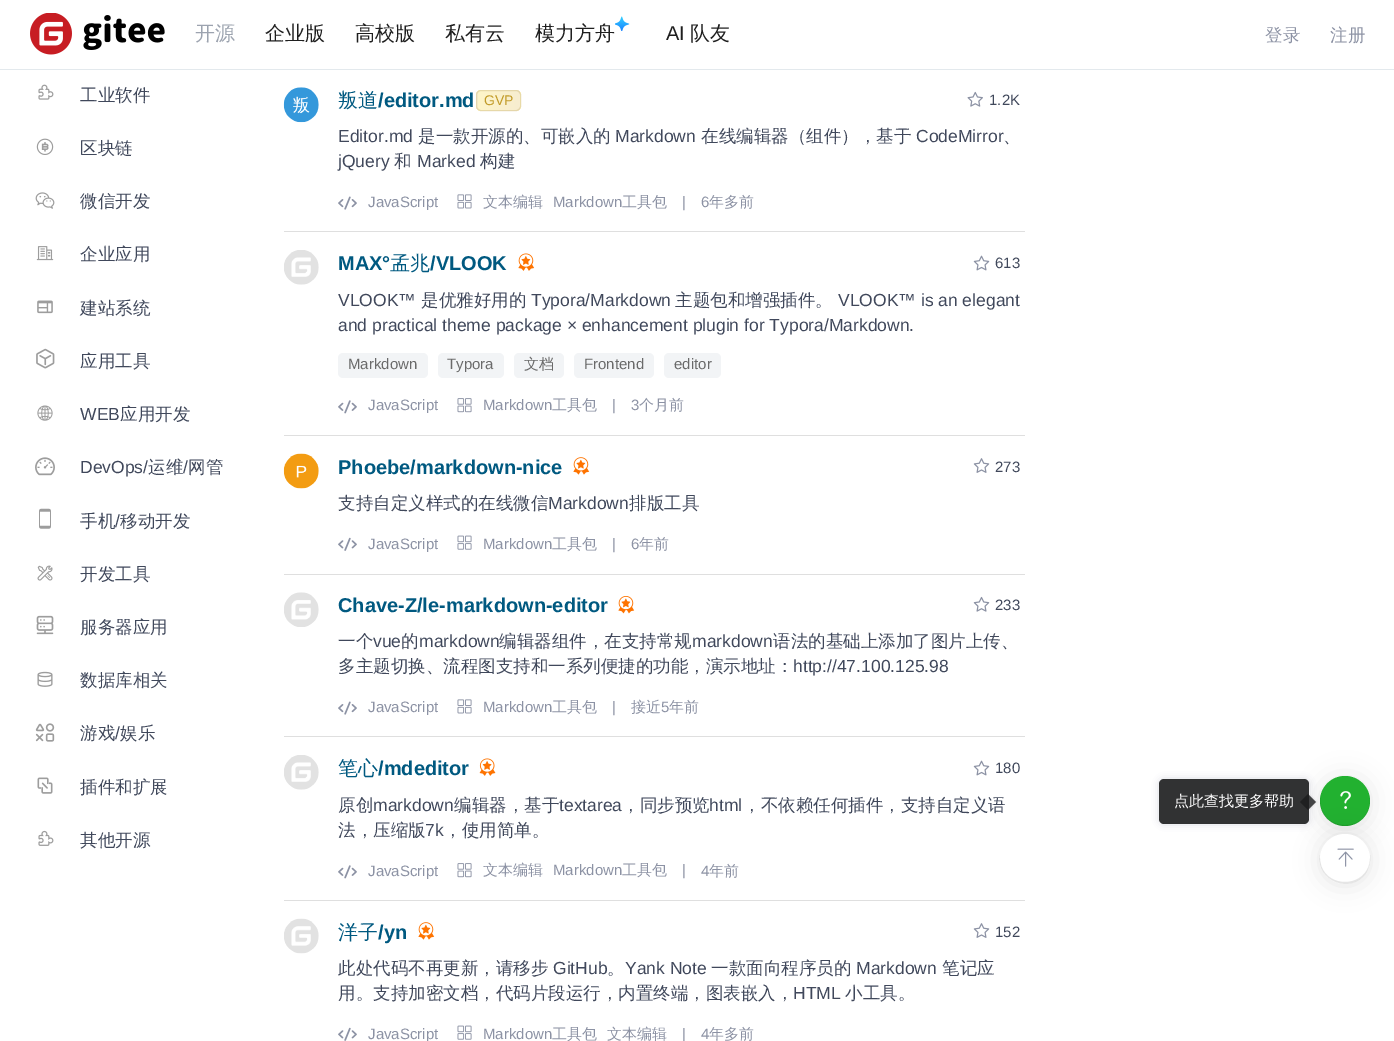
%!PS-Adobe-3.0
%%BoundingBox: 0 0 1394 1041
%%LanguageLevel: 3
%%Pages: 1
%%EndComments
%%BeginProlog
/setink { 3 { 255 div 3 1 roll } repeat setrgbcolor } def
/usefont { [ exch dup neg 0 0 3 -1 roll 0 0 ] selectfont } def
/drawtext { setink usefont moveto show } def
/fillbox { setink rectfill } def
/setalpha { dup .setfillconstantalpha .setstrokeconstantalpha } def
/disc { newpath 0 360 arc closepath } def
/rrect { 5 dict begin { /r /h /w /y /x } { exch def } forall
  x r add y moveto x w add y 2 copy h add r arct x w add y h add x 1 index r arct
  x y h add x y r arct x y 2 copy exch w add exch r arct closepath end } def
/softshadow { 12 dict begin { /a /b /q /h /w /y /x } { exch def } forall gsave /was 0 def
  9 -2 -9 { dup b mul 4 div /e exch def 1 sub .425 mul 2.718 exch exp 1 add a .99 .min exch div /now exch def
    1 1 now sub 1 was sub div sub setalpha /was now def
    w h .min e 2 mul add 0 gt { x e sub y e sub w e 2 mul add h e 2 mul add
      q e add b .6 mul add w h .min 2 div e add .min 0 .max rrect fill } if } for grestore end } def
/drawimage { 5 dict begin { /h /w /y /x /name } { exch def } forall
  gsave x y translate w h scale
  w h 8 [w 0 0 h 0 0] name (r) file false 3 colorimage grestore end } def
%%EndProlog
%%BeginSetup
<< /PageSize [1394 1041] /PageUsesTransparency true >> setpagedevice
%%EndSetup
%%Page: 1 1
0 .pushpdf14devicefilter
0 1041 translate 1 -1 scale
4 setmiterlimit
0 0 1394 1041 255 255 255 fillbox
0 69 1394 1 227 233 237 fillbox
(assets/img1.rgb) 30 13 135 42 drawimage
(开源) 195 40 /WenQuanYiZenHei-Medium 20 156 163 175 drawtext
(企业版) 265 40 /WenQuanYiZenHei-Medium 20 31 31 31 drawtext
(高校版) 355 40 /WenQuanYiZenHei-Medium 20 31 31 31 drawtext
(私有云) 445 40 /WenQuanYiZenHei-Medium 20 31 31 31 drawtext
(模力方舟) 535 40 /WenQuanYiZenHei-Medium 20 31 31 31 drawtext
(assets/img2.rgb) 615 16 15 15 drawimage
(AI) 666 40 /LiberationSans-Regular 20 31 31 31 drawtext
(队友) 690 40 /WenQuanYiZenHei-Medium 20 31 31 31 drawtext
(登录) 1265 41 /WenQuanYiZenHei-Medium 17.5 140 146 164 drawtext
(注册) 1330 41 /WenQuanYiZenHei-Medium 17.5 140 146 164 drawtext
(assets/img3.rgb) 38 84 16 16 drawimage
(工业软件) 80 101 /WenQuanYiZenHei-Medium 17.5 64 72 91 drawtext
(assets/img4.rgb) 36 138 18 17 drawimage
(区块链) 80 154 /WenQuanYiZenHei-Medium 17.5 64 72 91 drawtext
(assets/img5.rgb) 35 192 20 17 drawimage
(微信开发) 80 207 /WenQuanYiZenHei-Medium 17.5 64 72 91 drawtext
(assets/img6.rgb) 36 246 18 15 drawimage
(企业应用) 80 260 /WenQuanYiZenHei-Medium 17.5 64 72 91 drawtext
(assets/img7.rgb) 37 300 16 14 drawimage
(建站系统) 80 314 /WenQuanYiZenHei-Medium 17.5 64 72 91 drawtext
(assets/img8.rgb) 36 348 19 21 drawimage
(应用工具) 80 367 /WenQuanYiZenHei-Medium 17.5 64 72 91 drawtext
(assets/img9.rgb) 37 405 16 16 drawimage
(WEB) 80 420 /LiberationSans-Regular 17.5 64 72 91 drawtext
(应用开发) 120 420 /WenQuanYiZenHei-Medium 17.5 64 72 91 drawtext
(assets/img10.rgb) 35 457 20 19 drawimage
(DevOps/) 80 473 /LiberationSans-Regular 17.5 64 72 91 drawtext
(运维) 148 473 /WenQuanYiZenHei-Medium 17.5 64 72 91 drawtext
(/) 183 473 /LiberationSans-Regular 17.5 64 72 91 drawtext
(网管) 188 473 /WenQuanYiZenHei-Medium 17.5 64 72 91 drawtext
(assets/img11.rgb) 39 508 12 21 drawimage
(手机) 80 527 /WenQuanYiZenHei-Medium 17.5 64 72 91 drawtext
(/) 115 527 /LiberationSans-Regular 17.5 64 72 91 drawtext
(移动开发) 120 527 /WenQuanYiZenHei-Medium 17.5 64 72 91 drawtext
(assets/img12.rgb) 37 565 16 16 drawimage
(开发工具) 80 580 /WenQuanYiZenHei-Medium 17.5 64 72 91 drawtext
(assets/img13.rgb) 36 615 18 20 drawimage
(服务器应用) 80 633 /WenQuanYiZenHei-Medium 17.5 64 72 91 drawtext
(assets/img14.rgb) 37 671 16 16 drawimage
(数据库相关) 80 686 /WenQuanYiZenHei-Medium 17.5 64 72 91 drawtext
(assets/img15.rgb) 35 723 20 19 drawimage
(游戏) 80 739 /WenQuanYiZenHei-Medium 17.5 64 72 91 drawtext
(/) 115 739 /LiberationSans-Regular 17.5 64 72 91 drawtext
(娱乐) 120 739 /WenQuanYiZenHei-Medium 17.5 64 72 91 drawtext
(assets/img16.rgb) 37 777 16 17 drawimage
(插件和扩展) 80 793 /WenQuanYiZenHei-Medium 17.5 64 72 91 drawtext
(assets/img17.rgb) 38 830 16 16 drawimage
(其他开源) 80 846 /WenQuanYiZenHei-Medium 17.5 64 72 91 drawtext
(assets/img18.rgb) 283 87 36 36 drawimage
(叛道) 338 107 /WenQuanYiZenHei-Medium 20 0 89 128 drawtext
(/editor.md) 378 107 /LiberationSans-Bold 20 0 89 128 drawtext
gsave
476 90 45 21 5 rrect clip newpath
gsave 476 90 moveto 478 90 lineto 478 111 lineto 476 111 lineto closepath clip newpath
<< /ShadingType 2 /ColorSpace /DeviceRGB /Coords [435 101 478 101] /Extend [true true] /Function << /FunctionType 2 /Domain [0 1] /C0 [0.996 0.961 0.784] /C1 [0.969 0.929 0.816] /N 1 >> >> shfill grestore
gsave 478 90 moveto 520 90 lineto 520 111 lineto 478 111 lineto closepath clip newpath
<< /ShadingType 2 /ColorSpace /DeviceRGB /Coords [478 101 520 101] /Extend [true true] /Function << /FunctionType 2 /Domain [0 1] /C0 [0.996 0.961 0.784] /C1 [0.969 0.929 0.816] /N 1 >> >> shfill grestore
gsave 520 90 moveto 521 90 lineto 521 111 lineto 520 111 lineto closepath clip newpath
<< /ShadingType 2 /ColorSpace /DeviceRGB /Coords [520 101 563 101] /Extend [true true] /Function << /FunctionType 2 /Domain [0 1] /C0 [0.996 0.961 0.784] /C1 [0.969 0.929 0.816] /N 1 >> >> shfill grestore
grestore
0.5 setalpha
210 191 134 setink
476.5 90.5 44 20 4.5 rrect stroke
1 setalpha
(GVP) 484 105 /LiberationSans-Regular 14 193 154 38 drawtext
(assets/img19.rgb) 967 91 16 16 drawimage
(1.2K) 989 105 /LiberationSans-Regular 15 64 72 91 drawtext
(Editor.md) 338 142 /LiberationSans-Regular 17.5 64 72 91 drawtext
(是一款开源的、可嵌入的) 418 142 /WenQuanYiZenHei-Medium 17.5 64 72 91 drawtext
(Markdown) 615 142 /LiberationSans-Regular 17.5 64 72 91 drawtext
(在线编辑器（组件），基于) 701 142 /WenQuanYiZenHei-Medium 17.5 64 72 91 drawtext
(CodeMirror) 916 142 /LiberationSans-Regular 17.5 64 72 91 drawtext
(、) 1003 142 /WenQuanYiZenHei-Medium 17.5 64 72 91 drawtext
(jQuery) 338 167 /LiberationSans-Regular 17.5 64 72 91 drawtext
(和) 394 167 /WenQuanYiZenHei-Medium 17.5 64 72 91 drawtext
(Marked) 417 167 /LiberationSans-Regular 17.5 64 72 91 drawtext
(构建) 480 167 /WenQuanYiZenHei-Medium 17.5 64 72 91 drawtext
(assets/img20.rgb) 338 196 19 14 drawimage
(JavaScript) 368 207 /LiberationSans-Regular 15 140 146 164 drawtext
(assets/img21.rgb) 457 194 15 15 drawimage
(文本编辑) 483 207 /WenQuanYiZenHei-Medium 15 140 146 164 drawtext
(Markdown) 553 207 /LiberationSans-Regular 15 140 146 164 drawtext
(工具包) 622 207 /WenQuanYiZenHei-Medium 15 140 146 164 drawtext
(|) 682 207 /LiberationSans-Regular 15 140 146 164 drawtext
(6) 701 207 /LiberationSans-Regular 15 140 146 164 drawtext
(年多前) 709 207 /WenQuanYiZenHei-Medium 15 140 146 164 drawtext
284 231 741 1 223 223 223 fillbox
(assets/img22.rgb) 284 250 35 35 drawimage
(MAX°) 338 270 /LiberationSans-Bold 20 0 89 128 drawtext
(孟兆) 390 270 /WenQuanYiZenHei-Medium 20 0 89 128 drawtext
(/VLOOK) 430 270 /LiberationSans-Bold 20 0 89 128 drawtext
(assets/img23.rgb) 518 253 17 18 drawimage
(assets/img24.rgb) 973 255 17 16 drawimage
(613) 995 268 /LiberationSans-Regular 15 64 72 91 drawtext
(VLOOK™) 338 306 /LiberationSans-Regular 17.5 64 72 91 drawtext
(是优雅好用的) 421 306 /WenQuanYiZenHei-Medium 17.5 64 72 91 drawtext
(Typora/Markdown) 531 306 /LiberationSans-Regular 17.5 64 72 91 drawtext
(主题包和增强插件。) 675 306 /WenQuanYiZenHei-Medium 17.5 64 72 91 drawtext
(VLOOK™ is an elegant) 838 306 /LiberationSans-Regular 17.5 64 72 91 drawtext
(and practical theme package × enhancement plugin for Typora/Markdown.) 338 331 /LiberationSans-Regular 17.5 64 72 91 drawtext
242 244 246 setink
338 353 90 25 5 rrect fill
(Markdown) 348 369 /LiberationSans-Regular 15 106 106 106 drawtext
242 244 246 setink
438 353 66 25 5 rrect fill
(Typora) 447 369 /LiberationSans-Regular 15 106 106 106 drawtext
242 244 246 setink
514 353 50 25 5 rrect fill
(文档) 524 369 /WenQuanYiZenHei-Medium 15 106 106 106 drawtext
242 244 246 setink
574 353 80 25 5 rrect fill
(Frontend) 584 369 /LiberationSans-Regular 15 106 106 106 drawtext
242 244 246 setink
664 353 57 25 5 rrect fill
(editor) 674 369 /LiberationSans-Regular 15 106 106 106 drawtext
(assets/img25.rgb) 338 400 19 14 drawimage
(JavaScript) 368 410 /LiberationSans-Regular 15 140 146 164 drawtext
(assets/img26.rgb) 457 398 15 15 drawimage
(Markdown) 483 410 /LiberationSans-Regular 15 140 146 164 drawtext
(工具包) 552 410 /WenQuanYiZenHei-Medium 15 140 146 164 drawtext
(|) 612 410 /LiberationSans-Regular 15 140 146 164 drawtext
(3) 631 410 /LiberationSans-Regular 15 140 146 164 drawtext
(个月前) 639 410 /WenQuanYiZenHei-Medium 15 140 146 164 drawtext
284 435 741 1 223 223 223 fillbox
(assets/img27.rgb) 283 453 36 36 drawimage
(Phoebe/markdown-nice) 338 474 /LiberationSans-Bold 20 0 89 128 drawtext
(assets/img28.rgb) 573 457 17 18 drawimage
(assets/img29.rgb) 973 458 17 15 drawimage
(273) 995 472 /LiberationSans-Regular 15 64 72 91 drawtext
(支持自定义样式的在线微信) 338 509 /WenQuanYiZenHei-Medium 17.5 64 72 91 drawtext
(Markdown) 548 509 /LiberationSans-Regular 17.5 64 72 91 drawtext
(排版工具) 629 509 /WenQuanYiZenHei-Medium 17.5 64 72 91 drawtext
(assets/img30.rgb) 338 537 19 14 drawimage
(JavaScript) 368 549 /LiberationSans-Regular 15 140 146 164 drawtext
(assets/img31.rgb) 457 535 15 15 drawimage
(Markdown) 483 549 /LiberationSans-Regular 15 140 146 164 drawtext
(工具包) 552 549 /WenQuanYiZenHei-Medium 15 140 146 164 drawtext
(|) 612 549 /LiberationSans-Regular 15 140 146 164 drawtext
(6) 631 549 /LiberationSans-Regular 15 140 146 164 drawtext
(年前) 639 549 /WenQuanYiZenHei-Medium 15 140 146 164 drawtext
284 574 741 1 223 223 223 fillbox
(assets/img32.rgb) 284 592 35 35 drawimage
(Chave-Z/le-markdown-editor) 338 612 /LiberationSans-Bold 20 0 89 128 drawtext
(assets/img33.rgb) 618 596 17 18 drawimage
(assets/img34.rgb) 973 596 17 16 drawimage
(233) 995 610 /LiberationSans-Regular 15 64 72 91 drawtext
(一个) 338 647 /WenQuanYiZenHei-Medium 17.5 64 72 91 drawtext
(vue) 373 647 /LiberationSans-Regular 17.5 64 72 91 drawtext
(的) 401 647 /WenQuanYiZenHei-Medium 17.5 64 72 91 drawtext
(markdown) 419 647 /LiberationSans-Regular 17.5 64 72 91 drawtext
(编辑器组件，在支持常规) 499 647 /WenQuanYiZenHei-Medium 17.5 64 72 91 drawtext
(markdown) 692 647 /LiberationSans-Regular 17.5 64 72 91 drawtext
(语法的基础上添加了图片上传、) 773 647 /WenQuanYiZenHei-Medium 17.5 64 72 91 drawtext
(多主题切换、流程图支持和一系列便捷的功能，演示地址：) 338 672 /WenQuanYiZenHei-Medium 17.5 64 72 91 drawtext
(http://47.100.125.98) 793 672 /LiberationSans-Regular 17.5 64 72 91 drawtext
(assets/img20.rgb) 338 701 19 14 drawimage
(JavaScript) 368 712 /LiberationSans-Regular 15 140 146 164 drawtext
(assets/img21.rgb) 457 699 15 15 drawimage
(Markdown) 483 712 /LiberationSans-Regular 15 140 146 164 drawtext
(工具包) 552 712 /WenQuanYiZenHei-Medium 15 140 146 164 drawtext
(|) 612 712 /LiberationSans-Regular 15 140 146 164 drawtext
(接近) 631 712 /WenQuanYiZenHei-Medium 15 140 146 164 drawtext
(5) 661 712 /LiberationSans-Regular 15 140 146 164 drawtext
(年前) 669 712 /WenQuanYiZenHei-Medium 15 140 146 164 drawtext
284 736 741 1 223 223 223 fillbox
(assets/img22.rgb) 284 755 35 35 drawimage
(笔心) 338 775 /WenQuanYiZenHei-Medium 20 0 89 128 drawtext
(/mdeditor) 378 775 /LiberationSans-Bold 20 0 89 128 drawtext
(assets/img35.rgb) 479 758 17 18 drawimage
(assets/img24.rgb) 973 760 17 16 drawimage
(180) 995 773 /LiberationSans-Regular 15 64 72 91 drawtext
(原创) 338 811 /WenQuanYiZenHei-Medium 17.5 64 72 91 drawtext
(markdown) 373 811 /LiberationSans-Regular 17.5 64 72 91 drawtext
(编辑器，基于) 454 811 /WenQuanYiZenHei-Medium 17.5 64 72 91 drawtext
(textarea) 559 811 /LiberationSans-Regular 17.5 64 72 91 drawtext
(，同步预览) 622 811 /WenQuanYiZenHei-Medium 17.5 64 72 91 drawtext
(html) 709 811 /LiberationSans-Regular 17.5 64 72 91 drawtext
(，不依赖任何插件，支持自定义语) 743 811 /WenQuanYiZenHei-Medium 17.5 64 72 91 drawtext
(法，压缩版) 338 836 /WenQuanYiZenHei-Medium 17.5 64 72 91 drawtext
(7k) 425 836 /LiberationSans-Regular 17.5 64 72 91 drawtext
(，使用简单。) 444 836 /WenQuanYiZenHei-Medium 17.5 64 72 91 drawtext
(assets/img25.rgb) 338 865 19 14 drawimage
(JavaScript) 368 876 /LiberationSans-Regular 15 140 146 164 drawtext
(assets/img26.rgb) 457 863 15 15 drawimage
(文本编辑) 483 875 /WenQuanYiZenHei-Medium 15 140 146 164 drawtext
(Markdown) 553 875 /LiberationSans-Regular 15 140 146 164 drawtext
(工具包) 622 875 /WenQuanYiZenHei-Medium 15 140 146 164 drawtext
(|) 682 875 /LiberationSans-Regular 15 140 146 164 drawtext
(4) 701 876 /LiberationSans-Regular 15 140 146 164 drawtext
(年前) 709 876 /WenQuanYiZenHei-Medium 15 140 146 164 drawtext
284 900 741 1 223 223 223 fillbox
(assets/img36.rgb) 284 918 35 36 drawimage
(洋子) 338 939 /WenQuanYiZenHei-Medium 20 0 89 128 drawtext
(/yn) 378 939 /LiberationSans-Bold 20 0 89 128 drawtext
(assets/img28.rgb) 418 922 17 18 drawimage
(assets/img29.rgb) 973 923 17 15 drawimage
(152) 995 937 /LiberationSans-Regular 15 64 72 91 drawtext
(此处代码不再更新，请移步) 338 974 /WenQuanYiZenHei-Medium 17.5 64 72 91 drawtext
(GitHub) 553 974 /LiberationSans-Regular 17.5 64 72 91 drawtext
(。) 607 974 /WenQuanYiZenHei-Medium 17.5 64 72 91 drawtext
(Yank Note) 625 974 /LiberationSans-Regular 17.5 64 72 91 drawtext
(一款面向程序员的) 711 974 /WenQuanYiZenHei-Medium 17.5 64 72 91 drawtext
(Markdown) 856 974 /LiberationSans-Regular 17.5 64 72 91 drawtext
(笔记应) 942 974 /WenQuanYiZenHei-Medium 17.5 64 72 91 drawtext
(用。支持加密文档，代码片段运行，内置终端，图表嵌入，) 338 999 /WenQuanYiZenHei-Medium 17.5 64 72 91 drawtext
(HTML) 793 999 /LiberationSans-Regular 17.5 64 72 91 drawtext
(小工具。) 845 999 /WenQuanYiZenHei-Medium 17.5 64 72 91 drawtext
(assets/img30.rgb) 338 1027 19 14 drawimage
(JavaScript) 368 1039 /LiberationSans-Regular 15 140 146 164 drawtext
(assets/img31.rgb) 457 1025 15 15 drawimage
(Markdown) 483 1039 /LiberationSans-Regular 15 140 146 164 drawtext
(工具包) 552 1039 /WenQuanYiZenHei-Medium 15 140 146 164 drawtext
(文本编辑) 607 1039 /WenQuanYiZenHei-Medium 15 140 146 164 drawtext
(|) 682 1039 /LiberationSans-Regular 15 140 146 164 drawtext
(4) 701 1039 /LiberationSans-Regular 15 140 146 164 drawtext
(年多前) 709 1039 /WenQuanYiZenHei-Medium 15 140 146 164 drawtext
0 0 0 setink
1320 778 50 50 25 12.5 0.1 softshadow
34 177 48 setink
1345 801 25 disc fill
0.1 setalpha
0 0 0 setink
1321 795 moveto 1319 802 1320 809 1324 815 curveto 1340 838 1375 822 1369 795 curveto 1372 809 1364 825 1345 825 curveto 1326 825 1318 809 1321 795 curveto closepath fill
1 setalpha
(assets/img37.rgb) 1340 791 11 18 drawimage
1320 835 50 50 25 12.5 0.1 softshadow
255 255 255 setink
1345 859 25 disc fill
gsave
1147 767 moveto 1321 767 lineto 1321 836 lineto 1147 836 lineto closepath 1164 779 moveto 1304 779 lineto 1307 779 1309 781 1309 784 curveto 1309 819 lineto 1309 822 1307 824 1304 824 curveto 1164 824 lineto 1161 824 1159 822 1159 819 curveto 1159 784 lineto 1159 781 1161 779 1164 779 curveto closepath eoclip newpath
140 146 163 setink
1160 780 148 43 4 4 0.45 softshadow
grestore
0.9 setalpha
27 28 29 setink
1159 779 150 45 5 rrect fill
1 setalpha
(点此查找更多帮助) 1174 806 /WenQuanYiZenHei-Medium 15 255 255 255 drawtext
0.16 setalpha
179 179 179 setink
1310 794 moveto 1309 795 lineto 1316 802 lineto 1309 809 lineto 1310 810 lineto 1317.5 802 lineto closepath fill
0.81 setalpha
27 28 29 setink
1308 794 moveto 1316 802 lineto 1308 810 lineto 1300 802 lineto closepath fill
0.1 setalpha
0 0 0 setink
1370 855 moveto 1372 891 1318 891 1320 855 curveto 1316 881 1351 895 1366 873 curveto 1369 868 1371 861 1370 855 curveto closepath fill
1 setalpha
(assets/img38.rgb) 1337 848 17 19 drawimage
.poppdf14devicefilter showpage
%%EOF
